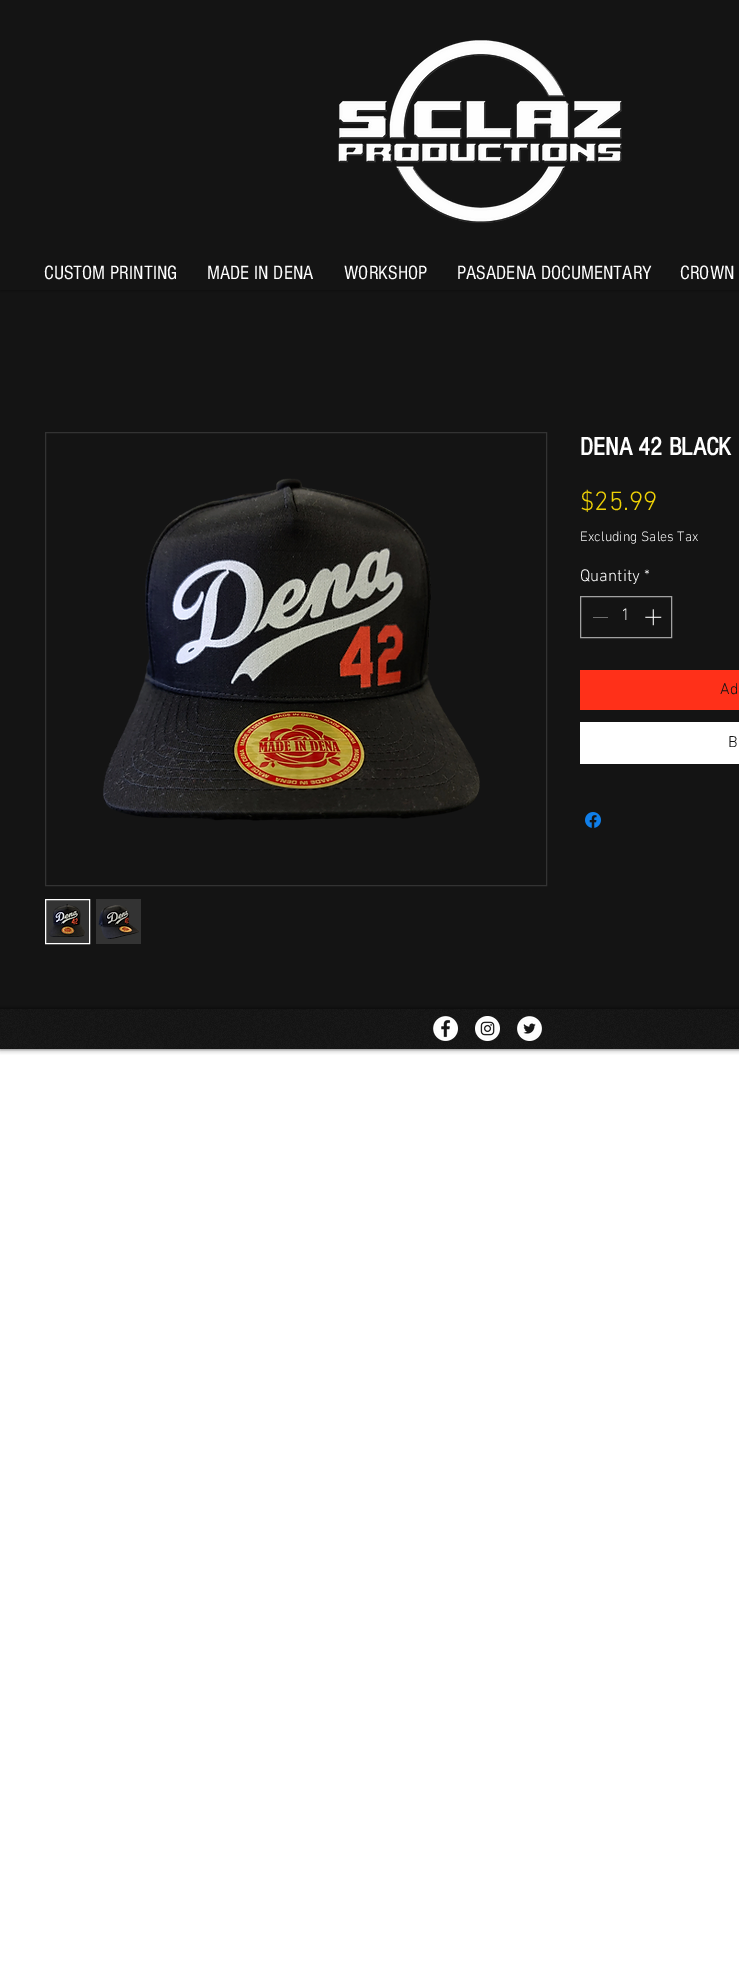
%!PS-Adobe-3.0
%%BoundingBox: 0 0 739 1978
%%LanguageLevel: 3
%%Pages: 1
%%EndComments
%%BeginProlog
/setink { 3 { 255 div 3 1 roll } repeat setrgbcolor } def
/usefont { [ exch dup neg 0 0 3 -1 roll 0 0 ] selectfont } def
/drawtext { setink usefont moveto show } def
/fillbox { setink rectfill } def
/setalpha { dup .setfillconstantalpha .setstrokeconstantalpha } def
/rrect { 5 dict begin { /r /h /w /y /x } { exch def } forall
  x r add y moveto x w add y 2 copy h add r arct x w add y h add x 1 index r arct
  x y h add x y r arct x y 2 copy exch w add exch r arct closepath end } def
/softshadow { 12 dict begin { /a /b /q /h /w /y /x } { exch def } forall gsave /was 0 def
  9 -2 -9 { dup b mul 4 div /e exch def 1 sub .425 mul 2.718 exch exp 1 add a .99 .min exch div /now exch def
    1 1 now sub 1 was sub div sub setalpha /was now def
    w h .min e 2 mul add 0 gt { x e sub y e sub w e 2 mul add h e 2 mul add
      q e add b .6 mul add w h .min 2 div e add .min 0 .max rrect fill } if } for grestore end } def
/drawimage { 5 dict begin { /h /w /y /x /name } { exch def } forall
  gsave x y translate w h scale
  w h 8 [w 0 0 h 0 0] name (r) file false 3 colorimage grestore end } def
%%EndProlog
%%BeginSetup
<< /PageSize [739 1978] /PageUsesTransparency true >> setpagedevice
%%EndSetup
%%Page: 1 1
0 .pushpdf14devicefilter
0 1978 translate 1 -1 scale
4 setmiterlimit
0 0 739 1978 255 255 255 fillbox
0 290 739 719 20 20 20 fillbox
0 0 0 setink
0 0 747 290 0 2.5 0.5 softshadow
0 0 739 290 20 20 20 fillbox
(assets/img1.rgb) 338 40 284 183 drawimage
(CUSTOM PRINTING) 44 279 /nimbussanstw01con-Regular 20 255 255 255 drawtext
(MADE IN DENA) 207 279 /nimbussanstw01con-Regular 20 255 255 255 drawtext
(WORKSHOP) 344 279 /nimbussanstw01con-Regular 20 255 255 255 drawtext
(PASADENA DOCUMENTARY) 457 279 /nimbussanstw01con-Regular 20 255 255 255 drawtext
(CROWN) 680 279 /nimbussanstw01con-Regular 20 255 255 255 drawtext
51 51 51 setink
45.5 432.5 501 453 rectstroke
(assets/img2.rgb) 103 478 377 343 drawimage
45.5 899.5 moveto 89.5 899.5 lineto 89.5 943.5 lineto 45.5 943.5 lineto closepath gsave fill grestore
255 255 255 setink
stroke
(assets/img3.rgb) 49 904 36 33 drawimage
96 899 45 45 51 51 51 fillbox
(assets/img4.rgb) 98 905 41 34 drawimage
(DENA 42 BLACK) 580 455 /nimbussanstw01con-Bold 26 255 255 255 drawtext
($25.99) 580 510 /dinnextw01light-Light 27 238 209 5 drawtext
(Excluding Sales Tax) 580 541 /dinnextw01light-Light 14 255 255 255 drawtext
(Quantity *) 580 581 /dinnextw01light-Light 17 255 255 255 drawtext
161 161 161 setink
580.5 596.5 91 41 rectstroke
593 617 15 1 110 110 110 fillbox
(1) 621 620 /dinnextw01light-Light 17 255 255 255 drawtext
(assets/img5.rgb) 645 609 17 17 drawimage
580 670 159 40 255 48 25 fillbox
(Ad) 720 694 /dinnextw01light-Light 16 20 20 20 drawtext
580 722 159 42 255 255 255 fillbox
(B) 728 747 /dinnextw01light-Light 16 20 20 20 drawtext
(assets/img6.rgb) 585 812 16 16 drawimage
0 0 0 setink
0 1009 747 40 0 2.5 0.7 softshadow
0 1009 739 40 20 20 20 fillbox
(assets/img7.rgb) 0 1009 739 40 drawimage
(assets/img8.rgb) 433 1016 25 25 drawimage
(assets/img9.rgb) 475 1016 25 25 drawimage
(assets/img10.rgb) 517 1016 25 25 drawimage
.poppdf14devicefilter showpage
%%EOF
